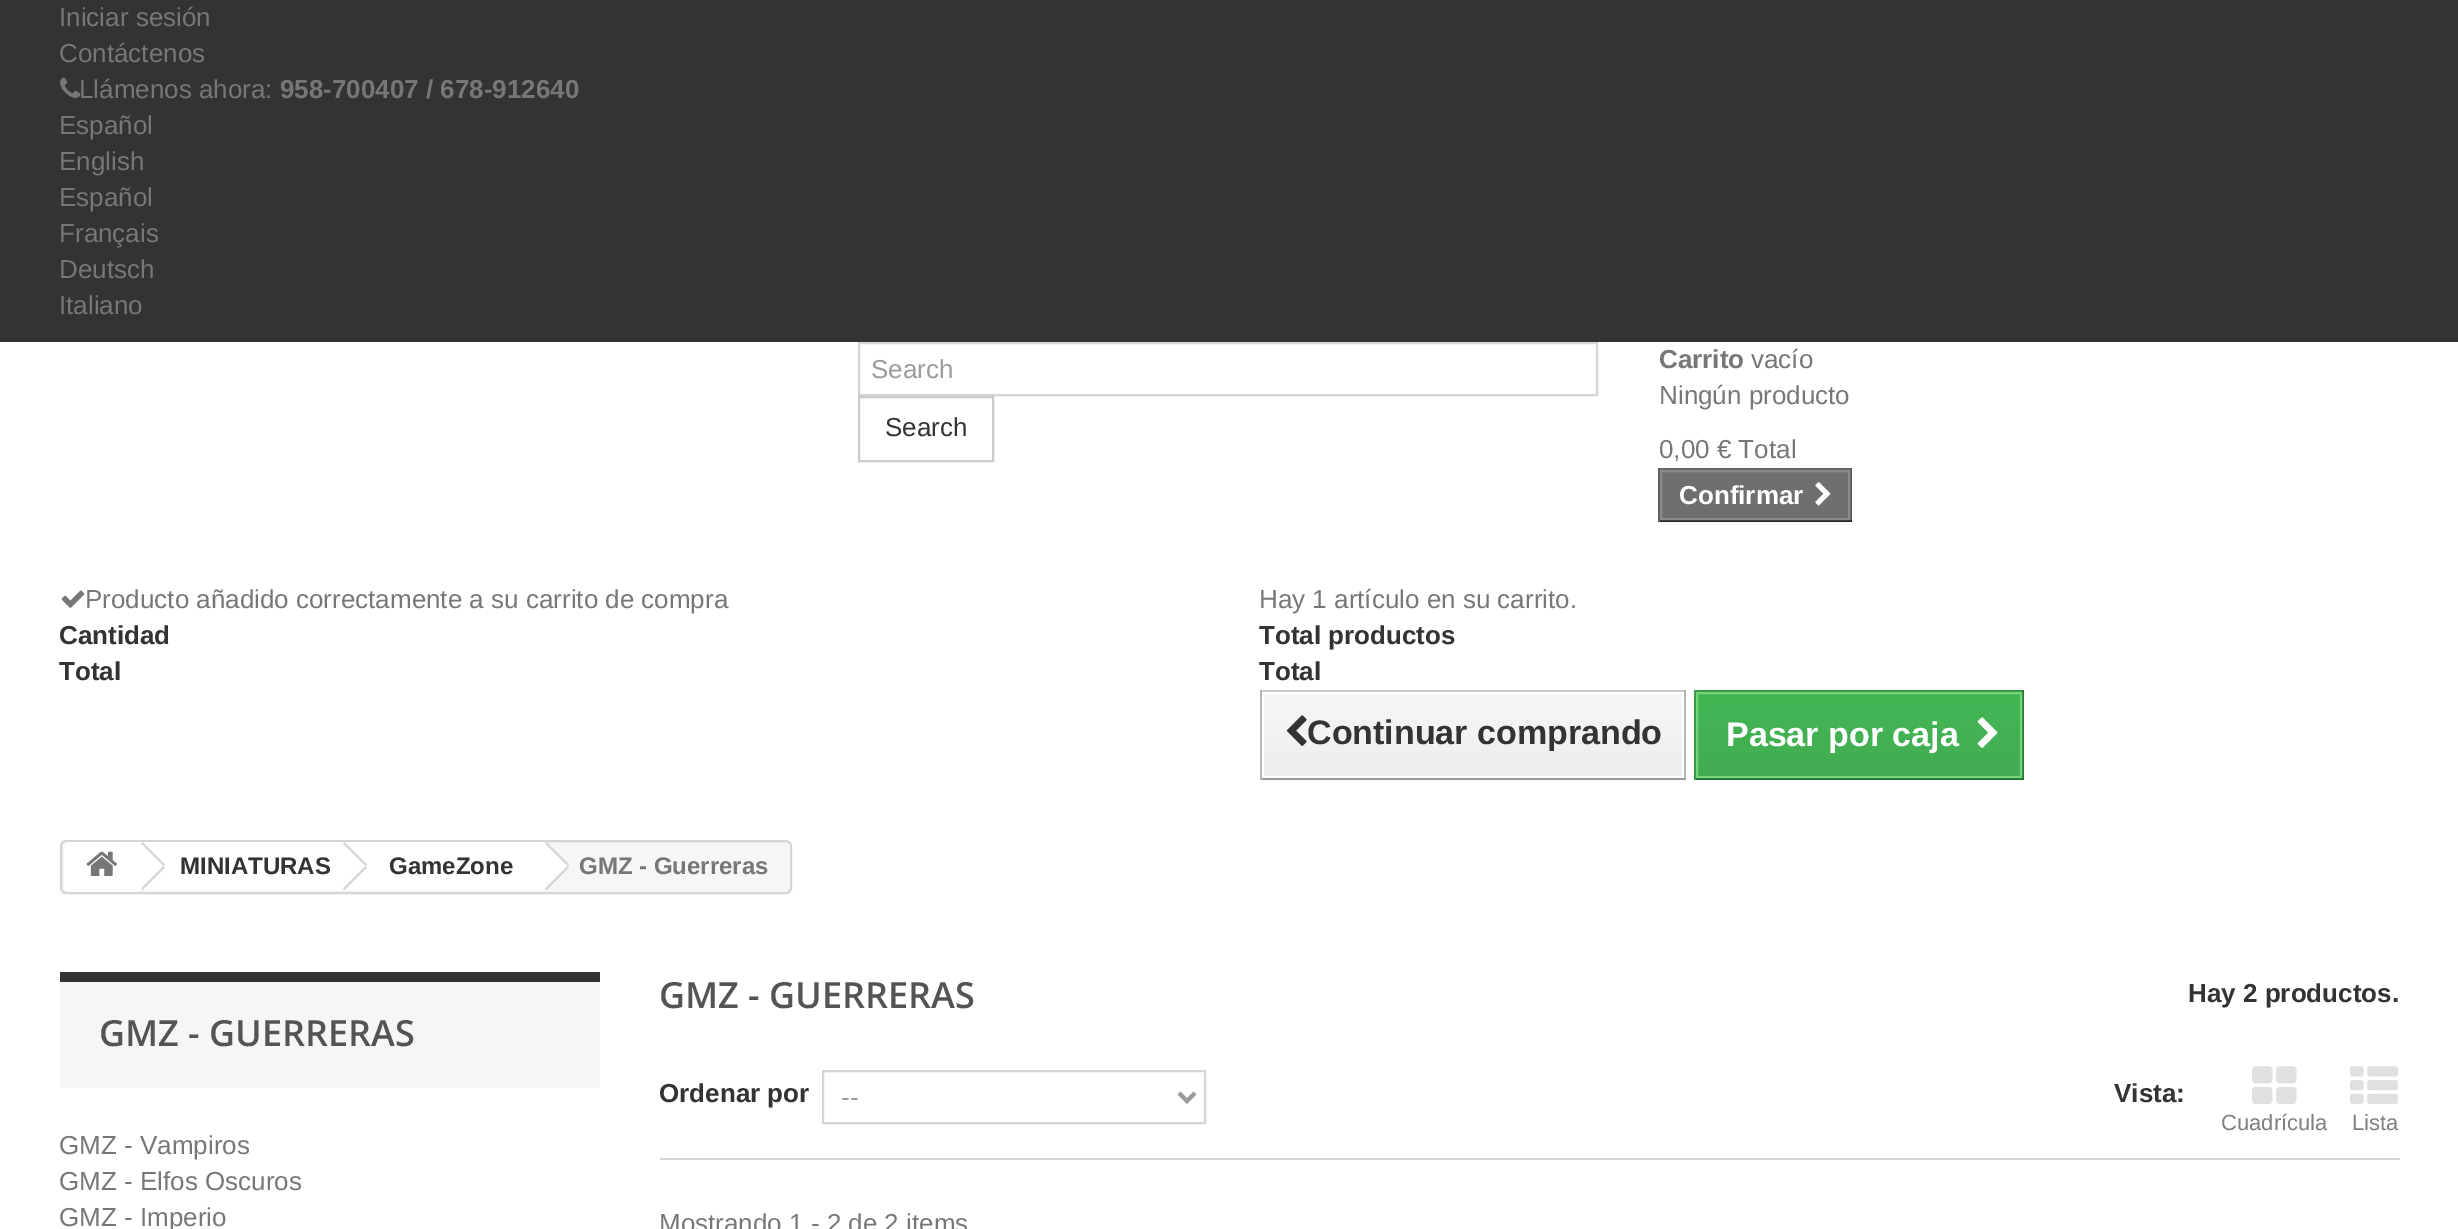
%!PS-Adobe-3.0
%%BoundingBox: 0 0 2458 1229
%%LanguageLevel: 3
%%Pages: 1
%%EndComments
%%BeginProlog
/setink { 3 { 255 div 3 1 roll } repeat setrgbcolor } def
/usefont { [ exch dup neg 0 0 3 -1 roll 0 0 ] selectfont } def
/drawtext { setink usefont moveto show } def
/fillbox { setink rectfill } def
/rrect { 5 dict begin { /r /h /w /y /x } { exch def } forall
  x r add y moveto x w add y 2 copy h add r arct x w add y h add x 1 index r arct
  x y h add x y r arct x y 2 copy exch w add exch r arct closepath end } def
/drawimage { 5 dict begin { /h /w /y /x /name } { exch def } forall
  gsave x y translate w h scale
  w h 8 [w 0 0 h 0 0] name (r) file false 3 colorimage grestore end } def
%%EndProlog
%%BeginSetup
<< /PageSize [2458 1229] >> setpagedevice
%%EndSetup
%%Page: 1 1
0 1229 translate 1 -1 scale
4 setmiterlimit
0 0 2458 1229 255 255 255 fillbox
0 0 2458 342 51 51 51 fillbox
(Iniciar sesión) 59 26 /LiberationSans-Regular 26 119 119 119 drawtext
(Contáctenos) 59 62 /LiberationSans-Regular 26 119 119 119 drawtext
(assets/img1.rgb) 60 77 21 21 drawimage
(Llámenos ahora:) 79 98 /LiberationSans-Regular 26 119 119 119 drawtext
(958-700407 / 678-912640) 280 98 /LiberationSans-Bold 26 119 119 119 drawtext
(Español) 59 134 /LiberationSans-Regular 26 119 119 119 drawtext
(English) 59 170 /LiberationSans-Regular 26 119 119 119 drawtext
(Español) 59 206 /LiberationSans-Regular 26 119 119 119 drawtext
(Français) 59 242 /LiberationSans-Regular 26 119 119 119 drawtext
(Deutsch) 59 278 /LiberationSans-Regular 26 119 119 119 drawtext
(Italiano) 59 314 /LiberationSans-Regular 26 119 119 119 drawtext
214 212 212 setink
2 setlinewidth
859 343 738 52 rectstroke
(Search) 871 378 /LiberationSans-Regular 26 156 155 155 drawtext
204 204 204 setink
859 397 134 64 rectstroke
(Search) 885 436 /LiberationSans-Regular 26 51 51 51 drawtext
(Carrito) 1659 368 /LiberationSans-Bold 26 119 119 119 drawtext
(vacío) 1751 368 /LiberationSans-Regular 26 119 119 119 drawtext
(Ningún producto) 1659 404 /LiberationSans-Regular 26 119 119 119 drawtext
(0,00 € Total) 1659 458 /LiberationSans-Regular 26 119 119 119 drawtext
1658 468 194 2 102 102 102 fillbox
1850 468 2 54 95 95 95 fillbox
1658 520 194 2 41 41 41 fillbox
1658 468 2 54 95 95 95 fillbox
111 111 111 setink
1661 471 moveto 1849 471 lineto 1849 519 lineto 1661 519 lineto closepath gsave fill grestore
139 138 138 setink
stroke
(Confirmar) 1679 504 /LiberationSans-Bold 26 255 255 255 drawtext
(assets/img2.rgb) 1815 482 16 24 drawimage
(assets/img3.rgb) 61 590 24 18 drawimage
(Producto añadido correctamente a su carrito de compra) 85 608 /LiberationSans-Regular 26 119 119 119 drawtext
(Cantidad) 59 644 /LiberationSans-Bold 26 51 51 51 drawtext
(Total) 59 680 /LiberationSans-Bold 26 51 51 51 drawtext
(Hay 1 artículo en su carrito.) 1259 608 /LiberationSans-Regular 26 119 119 119 drawtext
(Total productos) 1259 644 /LiberationSans-Bold 26 51 51 51 drawtext
(Total) 1259 680 /LiberationSans-Bold 26 51 51 51 drawtext
1260 690 426 2 202 202 202 fillbox
1684 690 2 90 183 183 183 fillbox
1260 778 426 2 154 154 154 fillbox
1260 690 2 90 183 183 183 fillbox
gsave 1264 694 moveto 1682 694 lineto 1682 776 lineto 1264 776 lineto closepath clip newpath
<< /ShadingType 2 /ColorSpace /DeviceRGB /Coords [1473 694 1473 776] /Extend [true true] /Function << /FunctionType 2 /Domain [0 1] /C0 [0.969 0.969 0.969] /C1 [0.929 0.929 0.929] /N 1 >> >> shfill grestore
(assets/img4.rgb) 1286 715 21 31 drawimage
(Continuar comprando) 1307 744 /LiberationSans-Bold 34 51 51 51 drawtext
gsave 1698 694 moveto 2020 694 lineto 2020 776 lineto 1698 776 lineto closepath clip newpath
<< /ShadingType 2 /ColorSpace /DeviceRGB /Coords [1859 692 1859 778] /Extend [true true] /Function << /FunctionType 2 /Domain [0 1] /C0 [0.263 0.718 0.329] /C1 [0.259 0.675 0.322] /N 1 >> >> shfill grestore
1694 690 330 2 57 154 73 fillbox
2022 690 2 90 36 127 50 fillbox
1694 778 330 2 26 109 39 fillbox
1694 690 2 90 57 154 73 fillbox
116 213 120 setink
1697 693 324 84 rectstroke
(Pasar por caja) 1726 746 /LiberationSans-Bold 34 255 255 255 drawtext
(assets/img5.rgb) 1977 717 21 31 drawimage
246 246 246 setink
61 841 730 52 5 rrect gsave fill grestore
214 212 212 setink
stroke
255 255 255 setink
70 842 moveto 140 842 lineto 140 892 lineto 70 892 lineto 66.5 892 64 889.5 64 886 curveto 64 848 lineto 64 844.5 66.5 842 70 842 curveto closepath fill
(assets/img6.rgb) 86 851 31 25 drawimage
140 842 206 48 255 255 255 fillbox
214 212 212 setink
142.5 842 moveto 165 864.5 lineto 163.5 866 lineto 141 843.5 lineto closepath 163.5 866 moveto 165 867.5 lineto 142.5 890 lineto 141 888.5 lineto closepath fill
(MINIATURAS) 180 874 /LiberationSans-Bold 24 51 51 51 drawtext
255 255 255 setink
366 843 moveto 386 863 lineto 387 865 387 867 386 869 curveto 366 889 lineto 364 890 362 890 360 889 curveto 340 869 lineto 339 867 339 865 340 863 curveto 360 843 lineto 362 842 364 842 366 843 curveto closepath fill
346 842 198 48 255 255 255 fillbox
214 212 212 setink
344.5 842 moveto 367 864.5 lineto 365.5 866 lineto 343 843.5 lineto closepath 365.5 866 moveto 367 867.5 lineto 344.5 890 lineto 343 888.5 lineto closepath fill
(GameZone) 389 874 /LiberationSans-Bold 24 51 51 51 drawtext
255 255 255 setink
548 843 moveto 568 863 lineto 569 865 569 867 568 869 curveto 548 889 lineto 546 890 544 890 542 889 curveto 522 869 lineto 521 867 521 865 522 863 curveto 542 843 lineto 544 842 546 842 548 843 curveto closepath fill
214 212 212 setink
546.5 842 moveto 569 864.5 lineto 567.5 866 lineto 545 843.5 lineto closepath 567.5 866 moveto 569 867.5 lineto 546.5 890 lineto 545 888.5 lineto closepath fill
(GMZ - Guerreras) 579 874 /LiberationSans-Bold 24 119 119 119 drawtext
60 982 540 106 246 246 246 fillbox
60 972 540 10 51 51 51 fillbox
(GMZ - GUERRERAS) 99 1046 /OpenSans-SemiBold 36 85 84 84 drawtext
(GMZ - Vampiros) 59 1154 /LiberationSans-Regular 26 119 119 119 drawtext
(GMZ - Elfos Oscuros) 59 1190 /LiberationSans-Regular 26 119 119 119 drawtext
(GMZ - Imperio) 59 1226 /LiberationSans-Regular 26 119 119 119 drawtext
(GMZ - GUERRERAS) 659 1008 /OpenSans-SemiBold 36 85 84 84 drawtext
(Hay 2 productos.) 2188 1002 /LiberationSans-Bold 26 51 51 51 drawtext
660 1158 1740 2 214 212 212 fillbox
(Ordenar por) 659 1102 /LiberationSans-Bold 26 51 51 51 drawtext
214 212 212 setink
823 1071 382 52 rectstroke
156 155 155 setink
4 setlinewidth
1179 1093 moveto 1187 1101 lineto 1195 1093 lineto stroke
(--) 841 1106 /LiberationSans-Regular 26 156 155 155 drawtext
(Vista:) 2114 1102 /LiberationSans-Bold 26 51 51 51 drawtext
(assets/img7.rgb) 2252 1066 45 38 drawimage
(Cuadrícula) 2221 1130 /LiberationSans-Regular 22 128 128 128 drawtext
(assets/img8.rgb) 2350 1066 48 38 drawimage
(Lista) 2352 1130 /LiberationSans-Regular 22 128 128 128 drawtext
(Mostrando 1 - 2 de 2 items) 659 1232 /LiberationSans-Regular 26 119 119 119 drawtext
showpage
%%EOF
